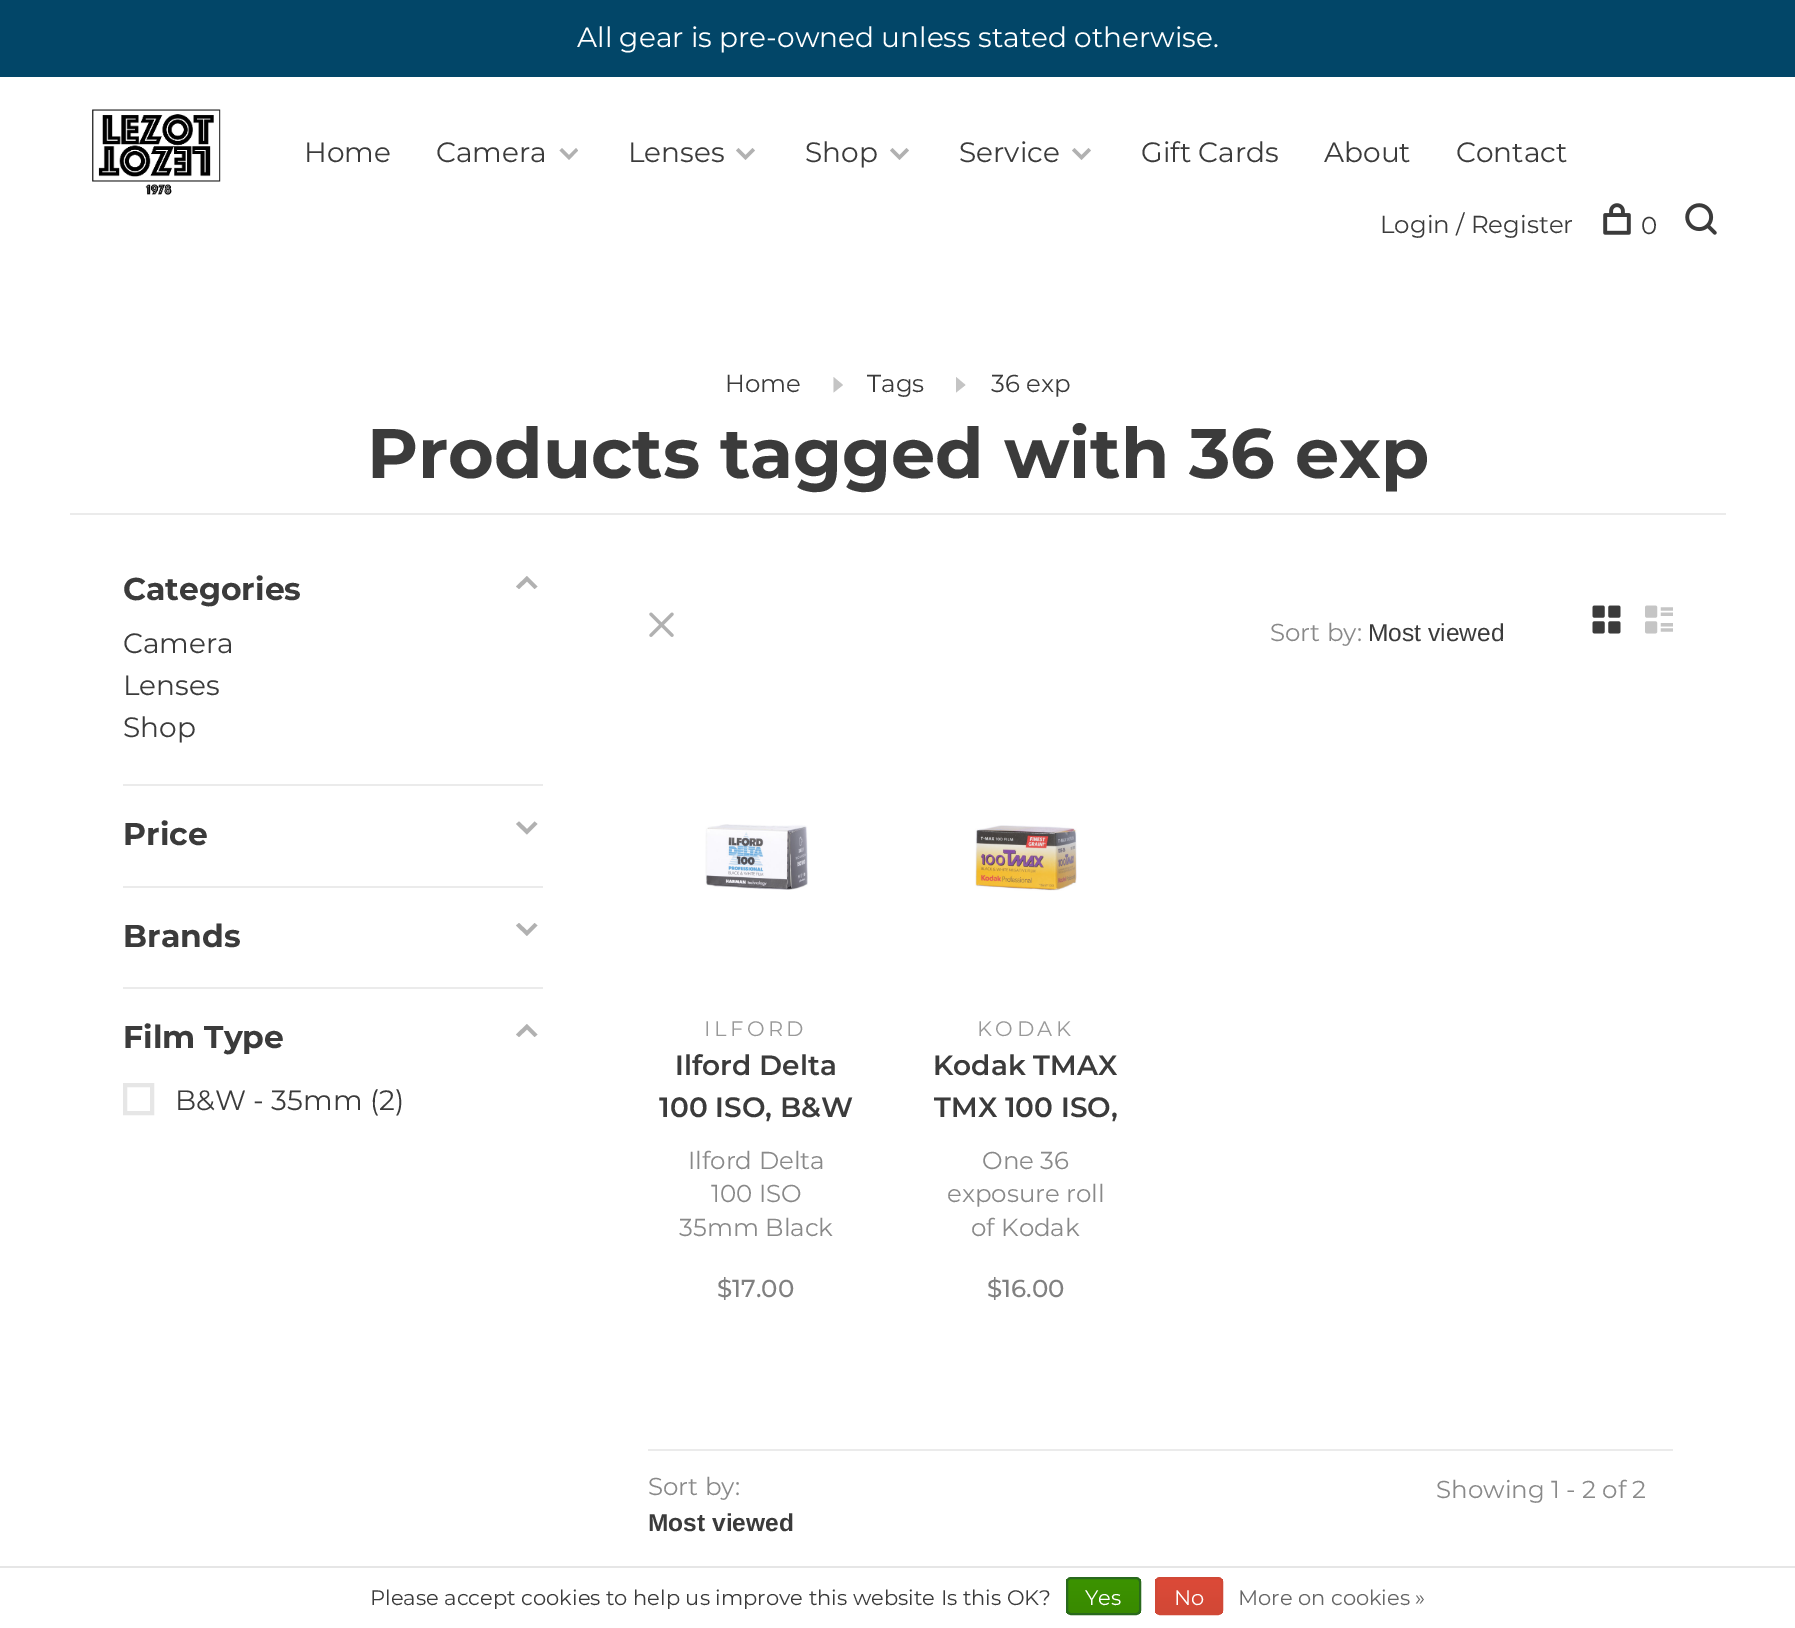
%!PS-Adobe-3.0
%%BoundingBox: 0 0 1795 1628
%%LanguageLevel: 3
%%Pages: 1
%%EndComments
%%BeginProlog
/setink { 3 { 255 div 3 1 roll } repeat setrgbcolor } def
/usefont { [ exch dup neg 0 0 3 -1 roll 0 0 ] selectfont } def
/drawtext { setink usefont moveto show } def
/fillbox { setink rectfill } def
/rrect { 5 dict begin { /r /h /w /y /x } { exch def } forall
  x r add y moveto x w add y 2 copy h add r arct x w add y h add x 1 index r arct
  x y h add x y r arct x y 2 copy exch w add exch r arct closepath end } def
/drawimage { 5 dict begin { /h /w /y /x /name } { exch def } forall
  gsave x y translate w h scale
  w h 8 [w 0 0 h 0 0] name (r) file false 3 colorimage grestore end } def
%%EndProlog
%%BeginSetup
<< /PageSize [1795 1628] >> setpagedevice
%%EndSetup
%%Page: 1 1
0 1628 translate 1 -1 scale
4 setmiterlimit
0 0 1795 1628 255 255 255 fillbox
0 0 1795 77 2 70 104 fillbox
(All gear is pre-owned unless stated otherwise.) 577 47 /Montserrat-Regular 28 255 255 255 drawtext
(assets/img1.rgb) 92 109 129 86 drawimage
(Home) 304 162 /Montserrat-Regular 28 59 59 59 drawtext
(Camera) 436 162 /Montserrat-Regular 28 59 59 59 drawtext
177 177 177 setink
569 160 moveto 559.5 150.5 lineto 562 148 lineto 569 155 lineto 576 148 lineto 578 150.5 lineto closepath fill
(Lenses) 628 162 /Montserrat-Regular 28 59 59 59 drawtext
177 177 177 setink
745.5 160 moveto 736 150.5 lineto 738.5 148 lineto 745.5 155 lineto 752.5 148 lineto 755 150.5 lineto closepath fill
(Shop) 805 162 /Montserrat-Regular 28 59 59 59 drawtext
177 177 177 setink
899.5 160 moveto 890 150.5 lineto 892.5 148 lineto 899.5 155 lineto 906.5 148 lineto 909 150.5 lineto closepath fill
(Service) 959 162 /Montserrat-Regular 28 59 59 59 drawtext
177 177 177 setink
1081.5 160 moveto 1072 150.5 lineto 1074.5 148 lineto 1081.5 155 lineto 1088.5 148 lineto 1091 150.5 lineto closepath fill
(Gift Cards) 1141 162 /Montserrat-Regular 28 59 59 59 drawtext
(About) 1324 162 /Montserrat-Regular 28 59 59 59 drawtext
(Contact) 1456 162 /Montserrat-Regular 28 59 59 59 drawtext
(Login / Register) 1380 233 /Montserrat-Regular 24.5 59 59 59 drawtext
(assets/img2.rgb) 1603 203 28 32 drawimage
(0) 1641 234 /Montserrat-Regular 24.5 59 59 59 drawtext
(assets/img3.rgb) 1685 203 32 32 drawimage
(Home) 725 392 /Montserrat-Regular 24.5 59 59 59 drawtext
196 196 196 setink
833.5 392.5 moveto 843 385 lineto 833.5 377 lineto closepath fill
(Tags) 867 392 /Montserrat-Regular 24.5 59 59 59 drawtext
196 196 196 setink
956 392.5 moveto 965.5 385 lineto 956 377 lineto closepath fill
(36 exp) 991 392 /Montserrat-Regular 24.5 59 59 59 drawtext
(Products tagged with 36 exp) 367 478 /Montserrat-Bold 70 59 59 59 drawtext
70 513 1656 2 235 235 235 fillbox
123 784 420 2 235 235 235 fillbox
(Categories) 123 600 /Montserrat-Bold 31.5 59 59 59 drawtext
177 177 177 setink
527 576 moveto 537.5 586.5 lineto 534.5 589 lineto 527 581.5 lineto 519 589 lineto 516 586.5 lineto closepath fill
(Camera) 123 653 /Montserrat-Regular 28 59 59 59 drawtext
(Lenses) 123 695 /Montserrat-Regular 28 59 59 59 drawtext
(Shop) 123 737 /Montserrat-Regular 28 59 59 59 drawtext
123 886 420 2 235 235 235 fillbox
(Price) 123 845 /Montserrat-Bold 31.5 59 59 59 drawtext
177 177 177 setink
527 834.5 moveto 516 824 lineto 519 821.5 lineto 527 829 lineto 534.5 821.5 lineto 537.5 824 lineto closepath fill
123 987 420 2 235 235 235 fillbox
(Brands) 123 947 /Montserrat-Bold 31.5 59 59 59 drawtext
177 177 177 setink
527 936 moveto 516 925.5 lineto 519 923 lineto 527 930.5 lineto 534.5 923 lineto 537.5 925.5 lineto closepath fill
(Film Type) 123 1048 /Montserrat-Bold 31.5 59 59 59 drawtext
177 177 177 setink
527 1024 moveto 537.5 1034.5 lineto 534.5 1037 lineto 527 1029.5 lineto 519 1037 lineto 516 1034.5 lineto closepath fill
230 230 230 setink
4 setlinewidth
125 1085 27 28 rectstroke
(B&W - 35mm \(2\)) 175 1110 /Montserrat-Regular 28 59 59 59 drawtext
(assets/img4.rgb) 649 612 25 25 drawimage
(Sort by:) 1270 641 /Montserrat-Regular 24.5 137 137 137 drawtext
(Most viewed) 1368 641 /LiberationSans-Regular 24.5 59 59 59 drawtext
(assets/img5.rgb) 1592 605 29 29 drawimage
(assets/img6.rgb) 1645 605 28 29 drawimage
(assets/img7.rgb) 705 824 103 66 drawimage
/Montserrat-Regular 21 usefont
153 153 153 setink
704 1036 moveto 3.5 0 (ILFORD) ashow
(Ilford Delta) 675 1075 /Montserrat-SemiBold 28 59 59 59 drawtext
(100 ISO, B&W) 659 1117 /Montserrat-SemiBold 28 59 59 59 drawtext
(Ilford Delta) 688 1169 /Montserrat-Regular 24.5 137 137 137 drawtext
(100 ISO) 711 1202 /Montserrat-Regular 24.5 137 137 137 drawtext
(35mm Black) 679 1236 /Montserrat-Regular 24.5 137 137 137 drawtext
($17.00) 717 1297 /Montserrat-Medium 24.5 128 128 128 drawtext
(assets/img8.rgb) 975 825 102 66 drawimage
/Montserrat-Regular 21 usefont
153 153 153 setink
977 1036 moveto 3.5 0 (KODAK) ashow
(Kodak TMAX) 933 1075 /Montserrat-SemiBold 28 59 59 59 drawtext
(TMX 100 ISO,) 934 1117 /Montserrat-SemiBold 28 59 59 59 drawtext
(One 36) 982 1169 /Montserrat-Regular 24.5 137 137 137 drawtext
(exposure roll) 947 1202 /Montserrat-Regular 24.5 137 137 137 drawtext
(of Kodak) 971 1236 /Montserrat-Regular 24.5 137 137 137 drawtext
($16.00) 987 1297 /Montserrat-Medium 24.5 128 128 128 drawtext
648 1449 1025 2 235 235 235 fillbox
(Sort by:) 648 1495 /Montserrat-Regular 24.5 137 137 137 drawtext
(Most viewed) 648 1531 /LiberationSans-Bold 24.5 59 59 59 drawtext
(Showing 1 - 2 of 2) 1436 1498 /Montserrat-Regular 24.5 137 137 137 drawtext
0 1566 1795 2 230 230 230 fillbox
(Please accept cookies to help us improve this website Is this OK?) 370 1605 /Montserrat-Regular 21 59 59 59 drawtext
gsave
1066 1577 75 38 5 rrect clip newpath
gsave 1066 1579 moveto 1141 1579 lineto 1141 1614 lineto 1066 1614 lineto closepath clip newpath
<< /ShadingType 2 /ColorSpace /DeviceRGB /Coords [1103 1579 1103 1614] /Extend [true true] /Function << /FunctionType 2 /Domain [0 1] /C0 [0.235 0.576 0] /C1 [0.224 0.541 0] /N 1 >> >> shfill grestore
grestore
41 105 29 setink
2 setlinewidth
1067 1578 73 36 4 rrect stroke
(Yes) 1085 1605 /Montserrat-Regular 21 255 255 255 drawtext
gsave
1155 1577 68 38 5 rrect clip newpath
gsave 1155 1579 moveto 1223 1579 lineto 1223 1614 lineto 1155 1614 lineto closepath clip newpath
<< /ShadingType 2 /ColorSpace /DeviceRGB /Coords [1189 1579 1189 1614] /Extend [true true] /Function << /FunctionType 2 /Domain [0 1] /C0 [0.863 0.29 0.22] /C1 [0.82 0.282 0.212] /N 1 >> >> shfill grestore
grestore
209 72 54 setink
1156 1578 66 36 4 rrect stroke
(No) 1174 1605 /Montserrat-Regular 21 255 255 255 drawtext
(More on cookies ») 1238 1605 /Montserrat-Regular 21 102 102 102 drawtext
showpage
%%EOF
